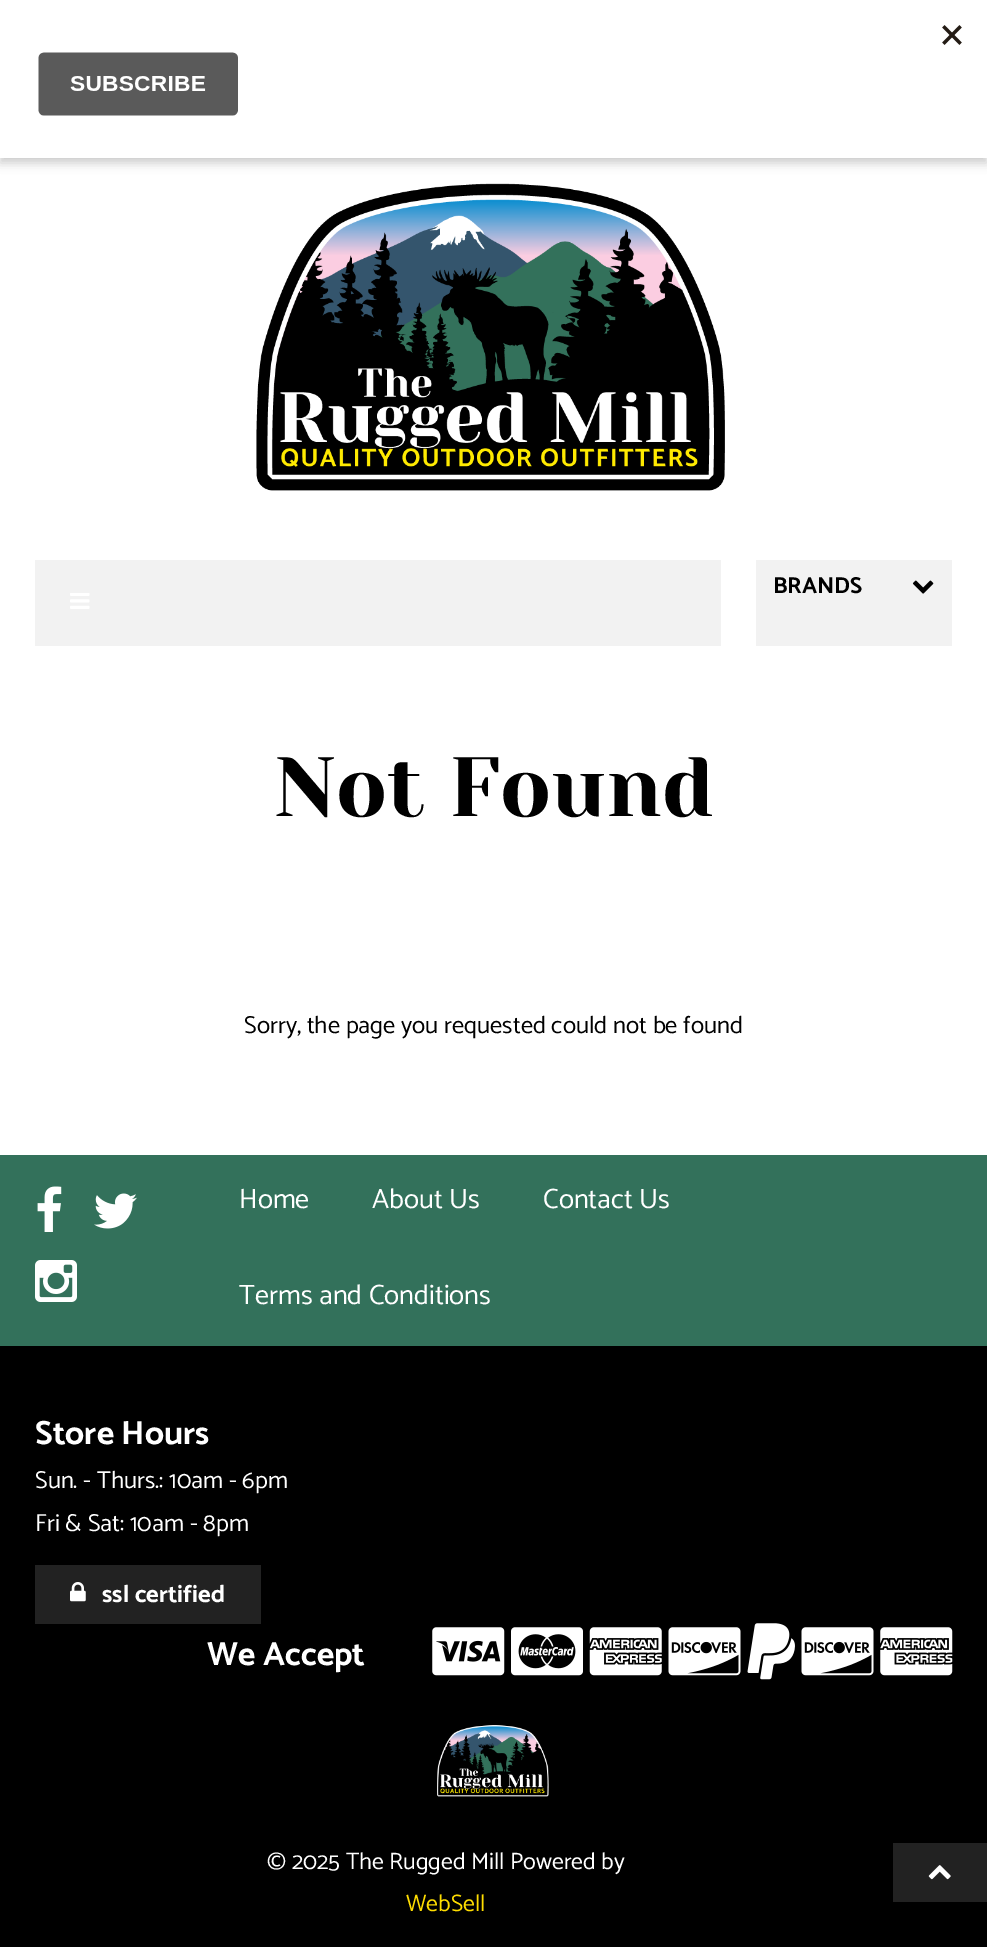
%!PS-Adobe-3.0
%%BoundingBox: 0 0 987 1947
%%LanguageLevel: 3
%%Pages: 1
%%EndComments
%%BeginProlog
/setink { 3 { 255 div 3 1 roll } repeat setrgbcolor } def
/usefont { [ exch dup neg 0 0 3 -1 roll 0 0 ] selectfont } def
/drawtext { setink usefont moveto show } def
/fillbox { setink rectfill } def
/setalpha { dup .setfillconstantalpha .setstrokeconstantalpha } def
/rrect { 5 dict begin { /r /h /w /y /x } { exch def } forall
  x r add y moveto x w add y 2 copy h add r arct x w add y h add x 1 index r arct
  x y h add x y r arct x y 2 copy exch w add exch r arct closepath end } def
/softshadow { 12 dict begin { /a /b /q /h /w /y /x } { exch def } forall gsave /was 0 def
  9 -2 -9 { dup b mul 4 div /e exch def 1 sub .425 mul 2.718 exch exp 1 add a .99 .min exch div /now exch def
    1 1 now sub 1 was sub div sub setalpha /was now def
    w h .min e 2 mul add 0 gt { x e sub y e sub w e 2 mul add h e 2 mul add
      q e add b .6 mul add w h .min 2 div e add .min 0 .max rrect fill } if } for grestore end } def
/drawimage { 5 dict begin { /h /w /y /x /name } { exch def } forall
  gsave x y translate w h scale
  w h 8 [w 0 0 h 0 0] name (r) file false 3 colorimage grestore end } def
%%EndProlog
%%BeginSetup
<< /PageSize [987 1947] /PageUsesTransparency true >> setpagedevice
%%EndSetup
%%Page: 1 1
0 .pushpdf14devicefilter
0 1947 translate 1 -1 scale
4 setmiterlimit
0 0 987 1947 255 255 255 fillbox
0 0 0 setink
0 5 987 158 0 5 0.2 softshadow
0 0 987 158 255 255 255 fillbox
(assets/img1.rgb) 38 25 924 91 drawimage
(assets/img2.rgb) 256 183 469 308 drawimage
35 560 917 86 242 242 242 fillbox
721 560 35 86 255 255 255 fillbox
(BRANDS) 773 593 /Catamaran-Bold 23 0 0 0 drawtext
(assets/img3.rgb) 912 580 22 14 drawimage
(assets/img4.rgb) 70 593 20 16 drawimage
(Not Found) 274 816 /YesevaOne-Regular 84 0 0 0 drawtext
(Sorry, the page you requested could not be found) 244 1033 /Catamaran-Regular 24.5 0 0 0 drawtext
0 1346 987 601 0 0 0 fillbox
0 1155 987 191 51 113 91 fillbox
(assets/img5.rgb) 37 1186 25 46 drawimage
(assets/img6.rgb) 94 1193 43 36 drawimage
(assets/img7.rgb) 35 1260 42 42 drawimage
(Home) 239 1208 /Catamaran-Regular 28 255 255 255 drawtext
(About Us) 372 1208 /Catamaran-Regular 28 255 255 255 drawtext
(Contact Us) 543 1208 /Catamaran-Regular 28 255 255 255 drawtext
(Terms and Conditions) 239 1304 /Catamaran-Regular 28 255 255 255 drawtext
(Store Hours) 35 1444 /Catamaran-Bold 33.5 255 255 255 drawtext
(Sun. - Thurs.: 10am - 6pm) 35 1488 /Catamaran-Regular 24.5 255 255 255 drawtext
(Fri & Sat: 10am - 8pm) 35 1531 /Catamaran-Regular 24.5 255 255 255 drawtext
35 1565 226 59 34 34 34 fillbox
(assets/img8.rgb) 70 1582 16 20 drawimage
(ssl certified) 102 1602 /Catamaran-Bold 24.5 255 255 255 drawtext
(We Accept) 207 1665 /Catamaran-Bold 33.5 255 255 255 drawtext
(assets/img9.rgb) 432 1627 73 49 drawimage
(assets/img10.rgb) 511 1627 72 49 drawimage
(assets/img11.rgb) 589 1627 73 49 drawimage
(assets/img12.rgb) 668 1627 73 49 drawimage
(assets/img13.rgb) 747 1623 48 57 drawimage
(assets/img12.rgb) 801 1627 73 49 drawimage
(assets/img14.rgb) 880 1627 73 49 drawimage
(assets/img15.rgb) 437 1725 112 72 drawimage
(© 2025 The Rugged Mill Powered by) 267 1869 /Catamaran-Regular 23.75 255 255 255 drawtext
(WebSell) 406 1911 /Catamaran-Regular 23.75 255 221 0 drawtext
893 1843 94 59 34 34 34 fillbox
(assets/img16.rgb) 928 1865 23 15 drawimage
.poppdf14devicefilter showpage
%%EOF
